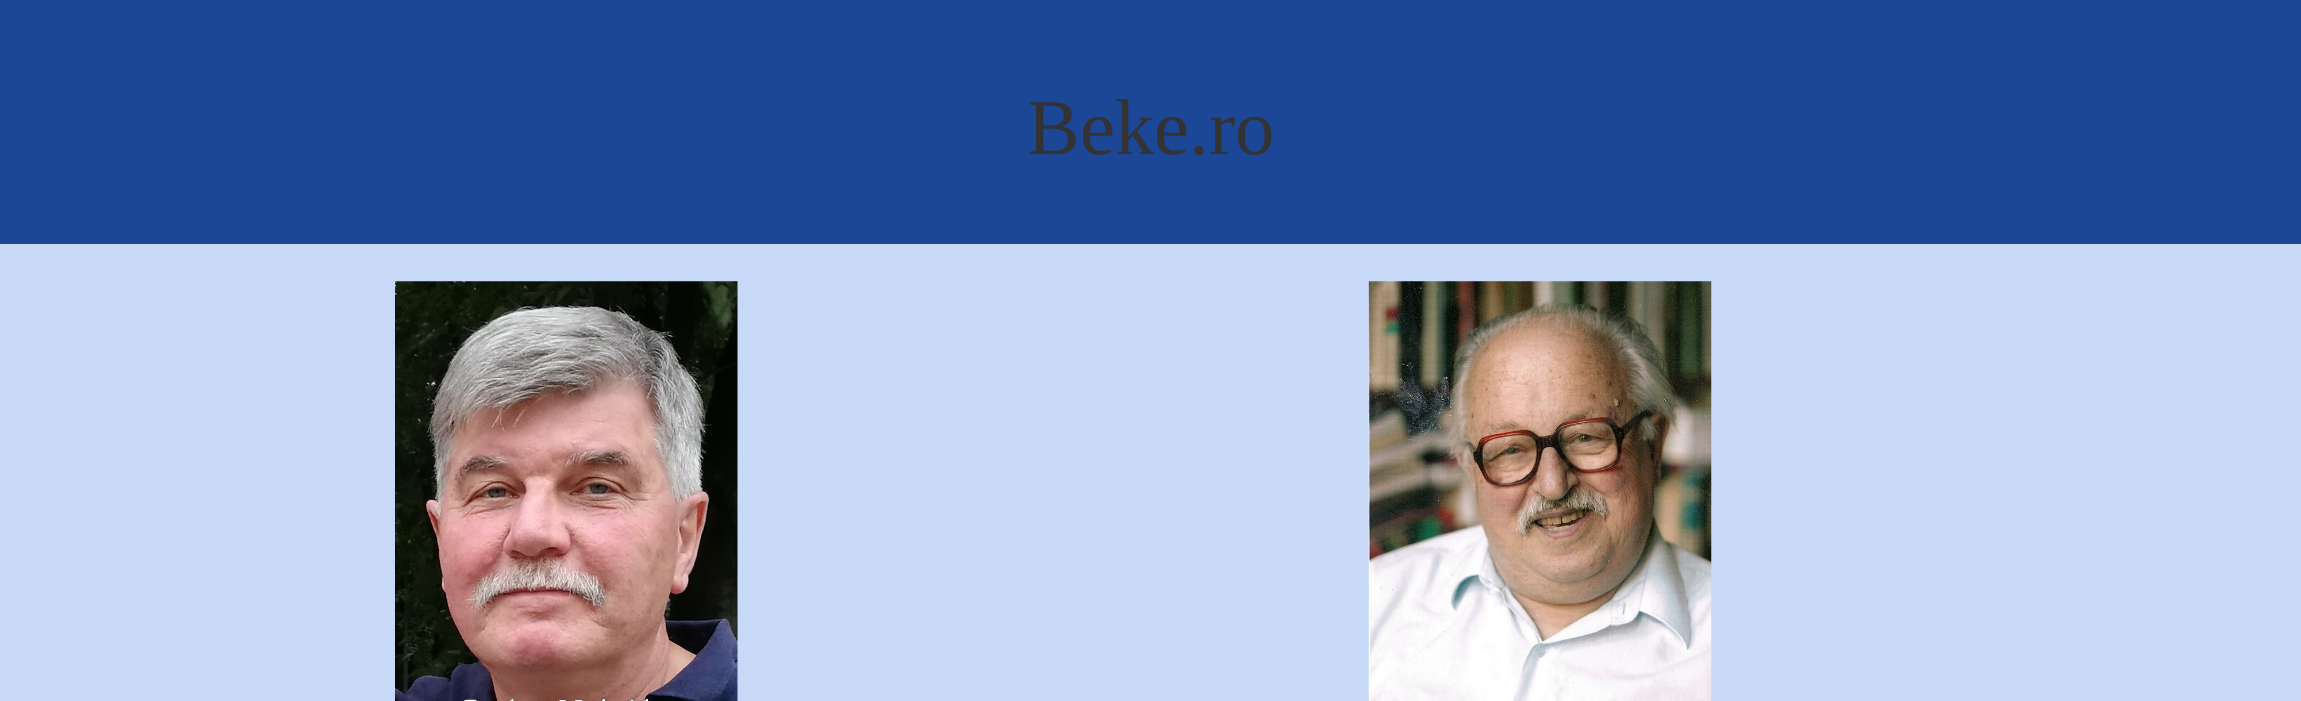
%!PS-Adobe-3.0
%%BoundingBox: 0 0 2301 701
%%LanguageLevel: 3
%%Pages: 1
%%EndComments
%%BeginProlog
/setink { 3 { 255 div 3 1 roll } repeat setrgbcolor } def
/usefont { [ exch dup neg 0 0 3 -1 roll 0 0 ] selectfont } def
/drawtext { setink usefont moveto show } def
/fillbox { setink rectfill } def
/drawimage { 5 dict begin { /h /w /y /x /name } { exch def } forall
  gsave x y translate w h scale
  w h 8 [w 0 0 h 0 0] name (r) file false 3 colorimage grestore end } def
%%EndProlog
%%BeginSetup
<< /PageSize [2301 701] >> setpagedevice
%%EndSetup
%%Page: 1 1
0 701 translate 1 -1 scale
4 setmiterlimit
0 0 2301 701 200 216 247 fillbox
0 0 2301 244 28 70 150 fillbox
(Beke.ro) 1027 154 /LiberationSerif-Regular 79 51 51 51 drawtext
(assets/img1.rgb) 395 281 343 420 drawimage
(assets/img2.rgb) 1368 281 344 420 drawimage
showpage
%%EOF
